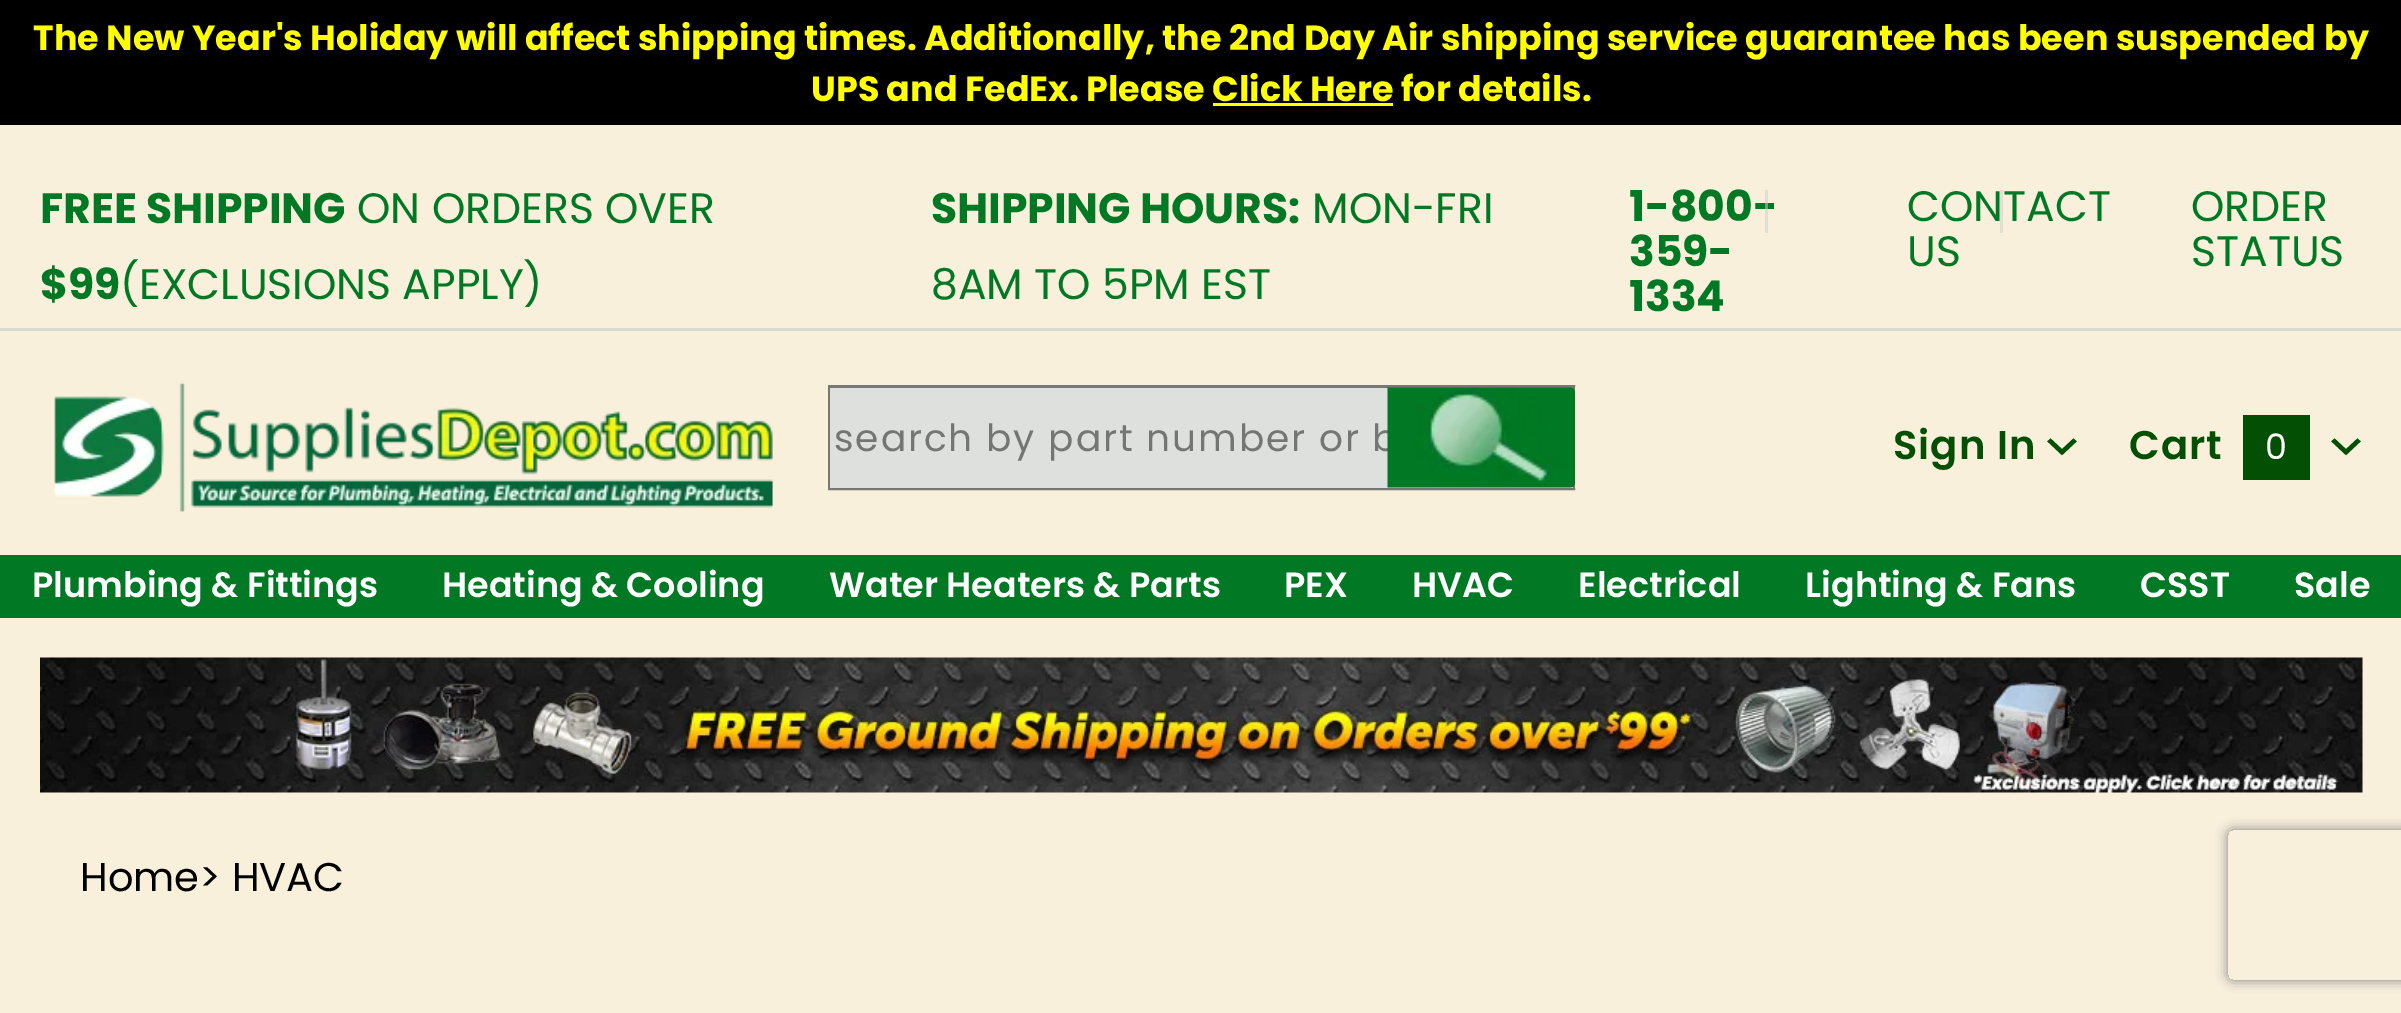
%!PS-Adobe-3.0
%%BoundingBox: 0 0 2401 1013
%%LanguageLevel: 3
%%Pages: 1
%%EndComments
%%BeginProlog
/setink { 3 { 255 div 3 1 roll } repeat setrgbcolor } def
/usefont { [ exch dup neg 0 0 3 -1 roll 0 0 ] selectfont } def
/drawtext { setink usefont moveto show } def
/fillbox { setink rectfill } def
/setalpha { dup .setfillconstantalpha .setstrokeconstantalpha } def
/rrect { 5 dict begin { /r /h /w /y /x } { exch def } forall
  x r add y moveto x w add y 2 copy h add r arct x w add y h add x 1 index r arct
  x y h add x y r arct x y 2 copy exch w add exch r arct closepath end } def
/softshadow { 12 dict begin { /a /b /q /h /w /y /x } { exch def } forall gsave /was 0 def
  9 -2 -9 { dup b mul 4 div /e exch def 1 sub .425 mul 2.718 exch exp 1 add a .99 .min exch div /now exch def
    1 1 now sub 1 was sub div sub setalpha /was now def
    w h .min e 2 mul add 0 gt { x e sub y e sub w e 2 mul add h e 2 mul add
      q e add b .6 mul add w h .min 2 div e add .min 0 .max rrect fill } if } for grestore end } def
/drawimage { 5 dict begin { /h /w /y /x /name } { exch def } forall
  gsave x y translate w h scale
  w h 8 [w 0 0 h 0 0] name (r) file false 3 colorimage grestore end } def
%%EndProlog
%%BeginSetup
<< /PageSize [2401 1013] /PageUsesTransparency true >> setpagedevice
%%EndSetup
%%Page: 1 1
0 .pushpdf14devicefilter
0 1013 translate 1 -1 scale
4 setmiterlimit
0 0 2401 1013 249 240 220 fillbox
0 0 2401 125 0 0 0 fillbox
(The New Year's Holiday will affect shipping times. Additionally, the 2nd Day Air shipping service guarantee has been suspended by) 33 50 /Poppins-Bold 35 255 255 0 drawtext
(UPS and FedEx. Please Click Here for details.) 811 101 /Poppins-Bold 35 255 255 0 drawtext
1213 103 180 3 255 255 0 fillbox
0 328 2401 3 218 216 210 fillbox
(FREE SHIPPING) 40 223 /Poppins-Bold 42.5 0 120 36 drawtext
(ON ORDERS OVER) 357 223 /Poppins-Regular 42.5 0 120 36 drawtext
($99) 40 299 /Poppins-Bold 42.5 0 120 36 drawtext
(\(EXCLUSIONS APPLY\)) 120 299 /Poppins-Regular 42.5 0 120 36 drawtext
(SHIPPING HOURS:) 931 223 /Poppins-Bold 42.5 0 120 36 drawtext
(MON-FRI) 1312 223 /Poppins-Regular 42.5 0 120 36 drawtext
(8AM TO 5PM EST) 931 299 /Poppins-Regular 42.5 0 120 36 drawtext
(1-800-) 1629 221 /Poppins-Bold 42.5 0 120 36 drawtext
0.52 setalpha
1765 190 3 43 205 205 205 fillbox
1 setalpha
(359-) 1629 266 /Poppins-Bold 42.5 0 120 36 drawtext
(1334) 1629 311 /Poppins-Bold 42.5 0 120 36 drawtext
(CONTACT) 1907 221 /Poppins-Regular 42.5 0 120 36 drawtext
2000 190 3 43 226 222 212 fillbox
(US) 1907 266 /Poppins-Regular 42.5 0 120 36 drawtext
(ORDER) 2191 221 /Poppins-Regular 42.5 0 120 36 drawtext
(STATUS) 2191 266 /Poppins-Regular 42.5 0 120 36 drawtext
(assets/img1.rgb) 54 383 719 129 drawimage
118 119 118 setink
3 setlinewidth
829.5 386.5 744 102 rectstroke
830 388 743 100 221 224 220 fillbox
/Poppins-Regular 37.5 usefont
117 117 117 setink
834 451 moveto 1.9 0 (search by part number or b) ashow
(assets/img2.rgb) 1387 387 189 101 drawimage
/Poppins-SemiBold 40 usefont
3 80 4 setink
1893 459 moveto 1 0 (Sign In) ashow
/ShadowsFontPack-Regular 30 usefont
2047 459 moveto 1 0 (1) ashow
/Poppins-SemiBold 40 usefont
2129 459 moveto 1 0 (Cart) ashow
2243 415 67 65 3 80 4 fillbox
/Poppins-Regular 35 usefont
255 255 255 setink
2265 459 moveto 1 0 (0) ashow
/ShadowsFontPack-Regular 30 usefont
3 80 4 setink
2331 459 moveto 1 0 (1) ashow
0 555 2401 63 0 120 36 fillbox
(Plumbing & Fittings) 32 597 /Poppins-SemiBold 35 255 255 255 drawtext
(Heating & Cooling) 442 597 /Poppins-SemiBold 35 255 255 255 drawtext
(Water Heaters & Parts) 829 597 /Poppins-SemiBold 35 255 255 255 drawtext
(PEX) 1284 597 /Poppins-SemiBold 35 255 255 255 drawtext
(HVAC) 1412 597 /Poppins-SemiBold 35 255 255 255 drawtext
(Electrical) 1578 597 /Poppins-SemiBold 35 255 255 255 drawtext
(Lighting & Fans) 1805 597 /Poppins-SemiBold 35 255 255 255 drawtext
(CSST) 2140 597 /Poppins-SemiBold 35 255 255 255 drawtext
(Sale) 2294 597 /Poppins-SemiBold 35 255 255 255 drawtext
(assets/img3.rgb) 40 657 2323 136 drawimage
(Home> HVAC) 80 891 /Poppins-Regular 40 0 0 0 drawtext
gsave
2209 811 moveto 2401 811 lineto 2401 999 lineto 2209 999 lineto closepath 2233 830 moveto 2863 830 lineto 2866 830 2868 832 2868 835 curveto 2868 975 lineto 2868 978 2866 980 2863 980 curveto 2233 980 lineto 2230 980 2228 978 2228 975 curveto 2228 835 lineto 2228 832 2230 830 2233 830 curveto closepath eoclip newpath
128 128 128 setink
2228 830 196 150 5 6 1 softshadow
grestore
.poppdf14devicefilter showpage
%%EOF
